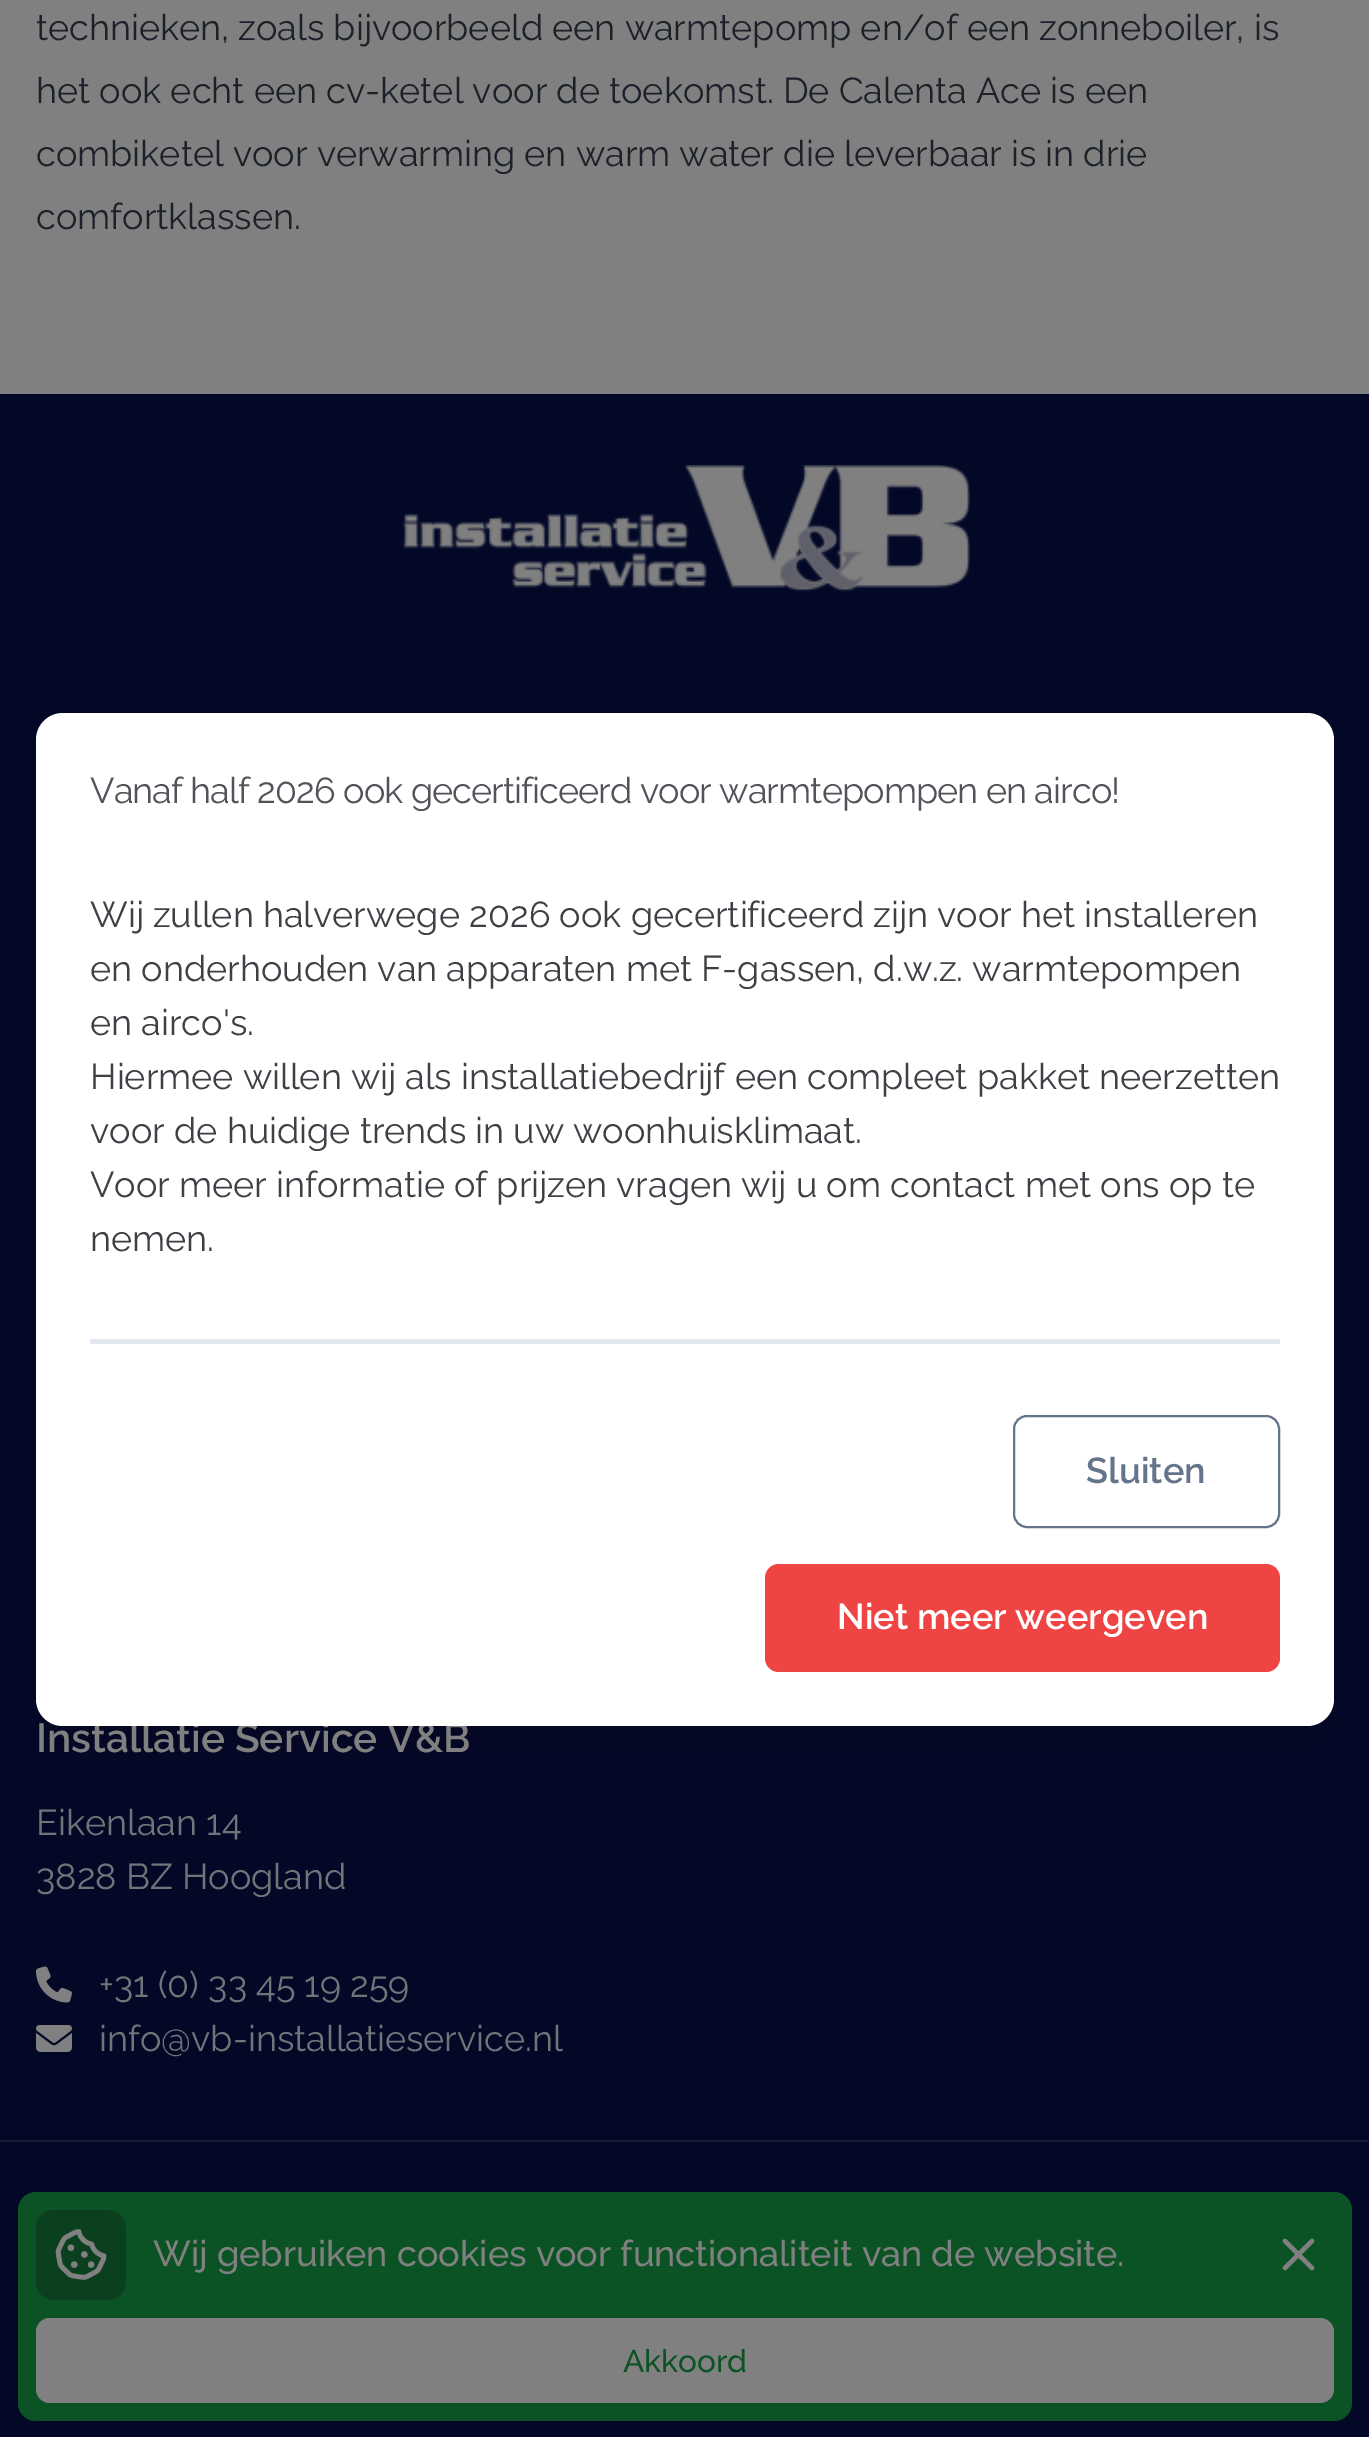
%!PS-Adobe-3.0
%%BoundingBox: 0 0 1369 2437
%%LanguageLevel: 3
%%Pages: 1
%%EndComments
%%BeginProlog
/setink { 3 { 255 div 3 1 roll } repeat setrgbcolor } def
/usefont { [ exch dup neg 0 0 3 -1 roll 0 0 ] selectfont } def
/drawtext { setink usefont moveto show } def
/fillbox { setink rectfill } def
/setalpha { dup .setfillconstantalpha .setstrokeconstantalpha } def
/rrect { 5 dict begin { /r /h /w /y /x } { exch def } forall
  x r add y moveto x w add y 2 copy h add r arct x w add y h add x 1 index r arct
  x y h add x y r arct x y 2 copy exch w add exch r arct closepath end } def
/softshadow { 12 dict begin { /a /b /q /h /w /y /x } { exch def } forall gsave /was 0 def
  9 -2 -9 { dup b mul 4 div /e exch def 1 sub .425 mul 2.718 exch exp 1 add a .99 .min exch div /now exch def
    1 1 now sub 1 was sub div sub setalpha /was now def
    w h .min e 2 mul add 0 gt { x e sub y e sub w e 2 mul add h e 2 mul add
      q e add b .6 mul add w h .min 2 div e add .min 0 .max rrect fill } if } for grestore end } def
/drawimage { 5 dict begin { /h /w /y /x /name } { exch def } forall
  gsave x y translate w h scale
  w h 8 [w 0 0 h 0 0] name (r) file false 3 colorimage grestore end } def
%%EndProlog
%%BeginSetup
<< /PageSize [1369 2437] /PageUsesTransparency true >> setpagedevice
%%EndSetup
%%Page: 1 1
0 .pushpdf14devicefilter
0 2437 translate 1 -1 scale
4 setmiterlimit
0 0 1369 2437 128 128 128 fillbox
(technieken, zoals bijvoorbeeld een warmtepomp en/of een zonneboiler, is) 36 40 /Raleway-Regular 36 28 33 41 drawtext
(het ook echt een cv-ketel voor de toekomst. De Calenta Ace is een) 36 103 /Raleway-Regular 36 28 33 41 drawtext
(combiketel voor verwarming en warm water die leverbaar is in drie) 36 166 /Raleway-Regular 36 28 33 41 drawtext
(comfortklassen.) 36 229 /Raleway-Regular 36 28 33 41 drawtext
0 394 1369 2043 4 8 39 fillbox
0 0 0 setink
43 743 1285 999 20 17 0.1 softshadow
(Installatie Service V&B) 36 1752 /Raleway-SemiBold 40.5 128 128 128 drawtext
255 255 255 setink
36 713 1298 1013 27 rrect fill
/Raleway-Regular 36 usefont
82 82 91 setink
90 803 moveto -0.9 0 (Vanaf half 2026 ook gecertificeerd voor warmtepompen en airco!) ashow
(Wij zullen halverwege 2026 ook gecertificeerd zijn voor het installeren) 90 927 /Raleway-Regular 36 63 63 70 drawtext
(en onderhouden van apparaten met F-gassen, d.w.z. warmtepompen) 90 981 /Raleway-Regular 36 63 63 70 drawtext
(en airco's.) 90 1035 /Raleway-Regular 36 63 63 70 drawtext
(Hiermee willen wij als installatiebedrijf een compleet pakket neerzetten) 90 1089 /Raleway-Regular 36 63 63 70 drawtext
(voor de huidige trends in uw woonhuisklimaat.) 90 1143 /Raleway-Regular 36 63 63 70 drawtext
(Voor meer informatie of prijzen vragen wij u om contact met ons op te) 90 1197 /Raleway-Regular 36 63 63 70 drawtext
(nemen.) 90 1251 /Raleway-Regular 36 63 63 70 drawtext
90 1339 1190 5 226 232 240 fillbox
100 116 139 setink
2 setlinewidth
1014 1416 265 111 13 rrect stroke
(Sluiten) 1086 1483 /Raleway-SemiBold 36 100 116 139 drawtext
239 68 68 setink
765 1564 515 108 14 rrect fill
(Niet meer weergeven) 837 1629 /Raleway-SemiBold 36 255 255 255 drawtext
(assets/img1.rgb) 402 465 568 127 drawimage
(Eikenlaan 14) 36 1835 /Raleway-Regular 36 113 116 120 drawtext
(3828 BZ Hoogland) 36 1889 /Raleway-Regular 36 113 116 120 drawtext
(assets/img2.rgb) 36 1966 36 37 drawimage
(+31 \(0\) 33 45 19 259) 99 1997 /Raleway-Regular 36 113 116 120 drawtext
(assets/img3.rgb) 36 2025 36 27 drawimage
(info@vb-installatieservice.nl) 99 2051 /Raleway-Regular 36 113 116 120 drawtext
0 2140 1369 2 22 28 56 fillbox
11 82 37 setink
18 2192 1334 229 18 rrect fill
11 64 31 setink
36 2210 90 90 18 rrect fill
(assets/img4.rgb) 55 2229 52 51 drawimage
(Wij gebruiken cookies voor functionaliteit van de website.) 153 2266 /Raleway-Medium 36 128 128 128 drawtext
4.5 setlinewidth
1 setlinecap
1 setlinejoin
1285 2268 moveto 1312 2241 lineto 1285 2241 moveto 1312 2268 lineto stroke
36 2318 1298 85 14 rrect fill
(Akkoord) 623 2372 /Raleway-Medium 31.5 11 82 37 drawtext
.poppdf14devicefilter showpage
%%EOF
